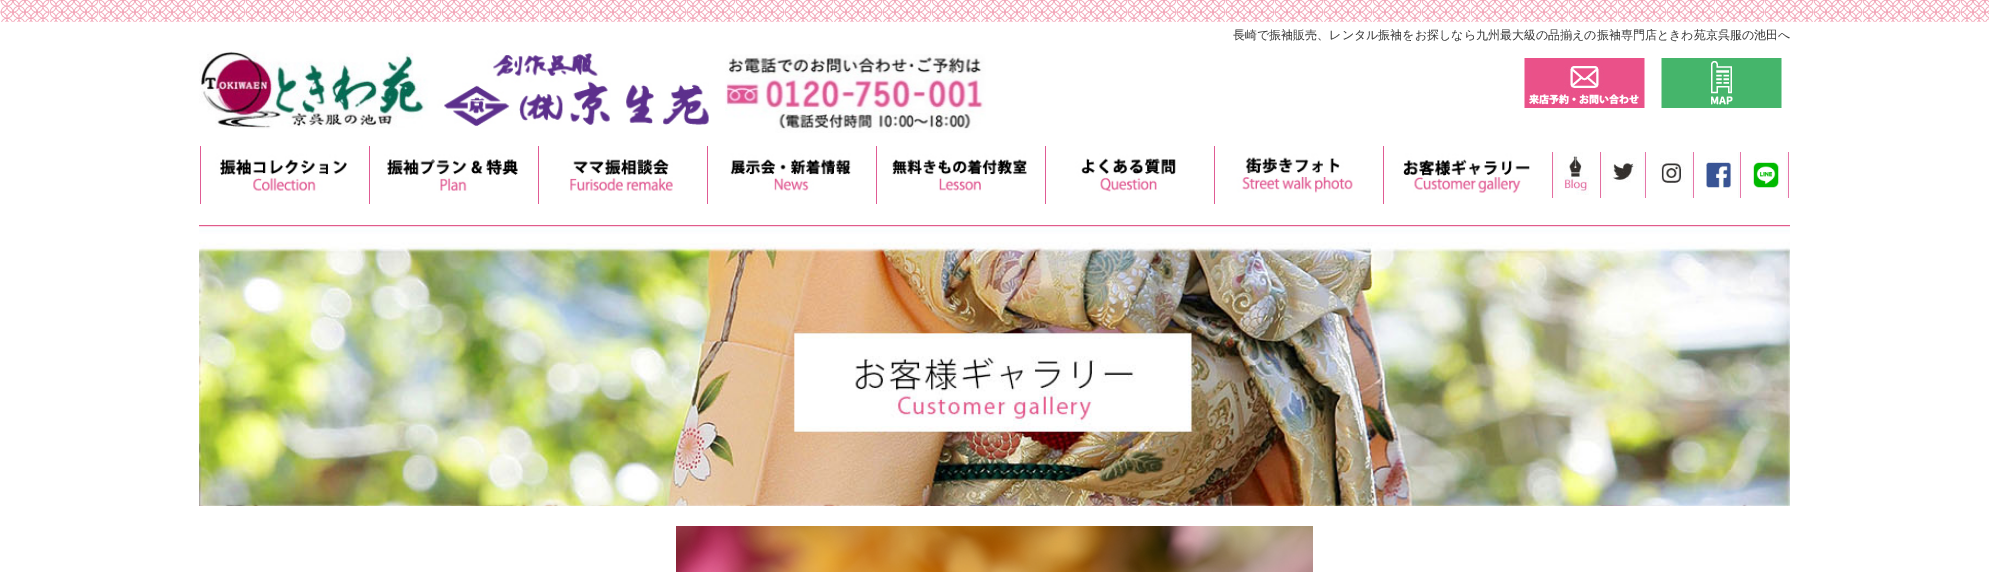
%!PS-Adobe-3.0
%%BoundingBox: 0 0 1989 572
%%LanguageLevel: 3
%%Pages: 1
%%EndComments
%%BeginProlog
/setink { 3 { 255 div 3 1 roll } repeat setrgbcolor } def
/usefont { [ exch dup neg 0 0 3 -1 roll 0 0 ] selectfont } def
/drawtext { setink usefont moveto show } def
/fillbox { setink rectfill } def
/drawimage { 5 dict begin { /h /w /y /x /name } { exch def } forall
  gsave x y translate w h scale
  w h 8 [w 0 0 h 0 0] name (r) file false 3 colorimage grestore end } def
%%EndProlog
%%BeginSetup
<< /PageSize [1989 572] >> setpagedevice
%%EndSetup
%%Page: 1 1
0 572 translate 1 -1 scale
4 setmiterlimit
0 0 1989 572 255 255 255 fillbox
(assets/img1.rgb) 0 0 1989 22 drawimage
(長崎で振袖販売、レンタル振袖をお探しなら九州最大級の品揃えの振袖専門店ときわ苑京呉服の池田へ) 1233 39 /WenQuanYiZenHei-Medium 12 51 51 51 drawtext
(assets/img2.rgb) 199 50 510 79 drawimage
(assets/img3.rgb) 725 54 261 79 drawimage
(assets/img4.rgb) 1524 58 121 50 drawimage
(assets/img5.rgb) 1661 58 121 50 drawimage
(assets/img6.rgb) 200 146 147 58 drawimage
(assets/img7.rgb) 369 146 149 58 drawimage
(assets/img8.rgb) 538 146 135 58 drawimage
(assets/img9.rgb) 707 146 144 58 drawimage
(assets/img10.rgb) 876 146 151 58 drawimage
(assets/img11.rgb) 1045 146 131 58 drawimage
(assets/img12.rgb) 1214 146 139 58 drawimage
(assets/img13.rgb) 1383 146 147 58 drawimage
(assets/img14.rgb) 1552 152 37 46 drawimage
(assets/img15.rgb) 1600 152 46 46 drawimage
(assets/img16.rgb) 1660 152 34 46 drawimage
(assets/img17.rgb) 1706 152 35 46 drawimage
(assets/img18.rgb) 1753 152 36 46 drawimage
(assets/img19.rgb) 199 225 1591 281 drawimage
(assets/img20.rgb) 676 526 637 46 drawimage
showpage
%%EOF
